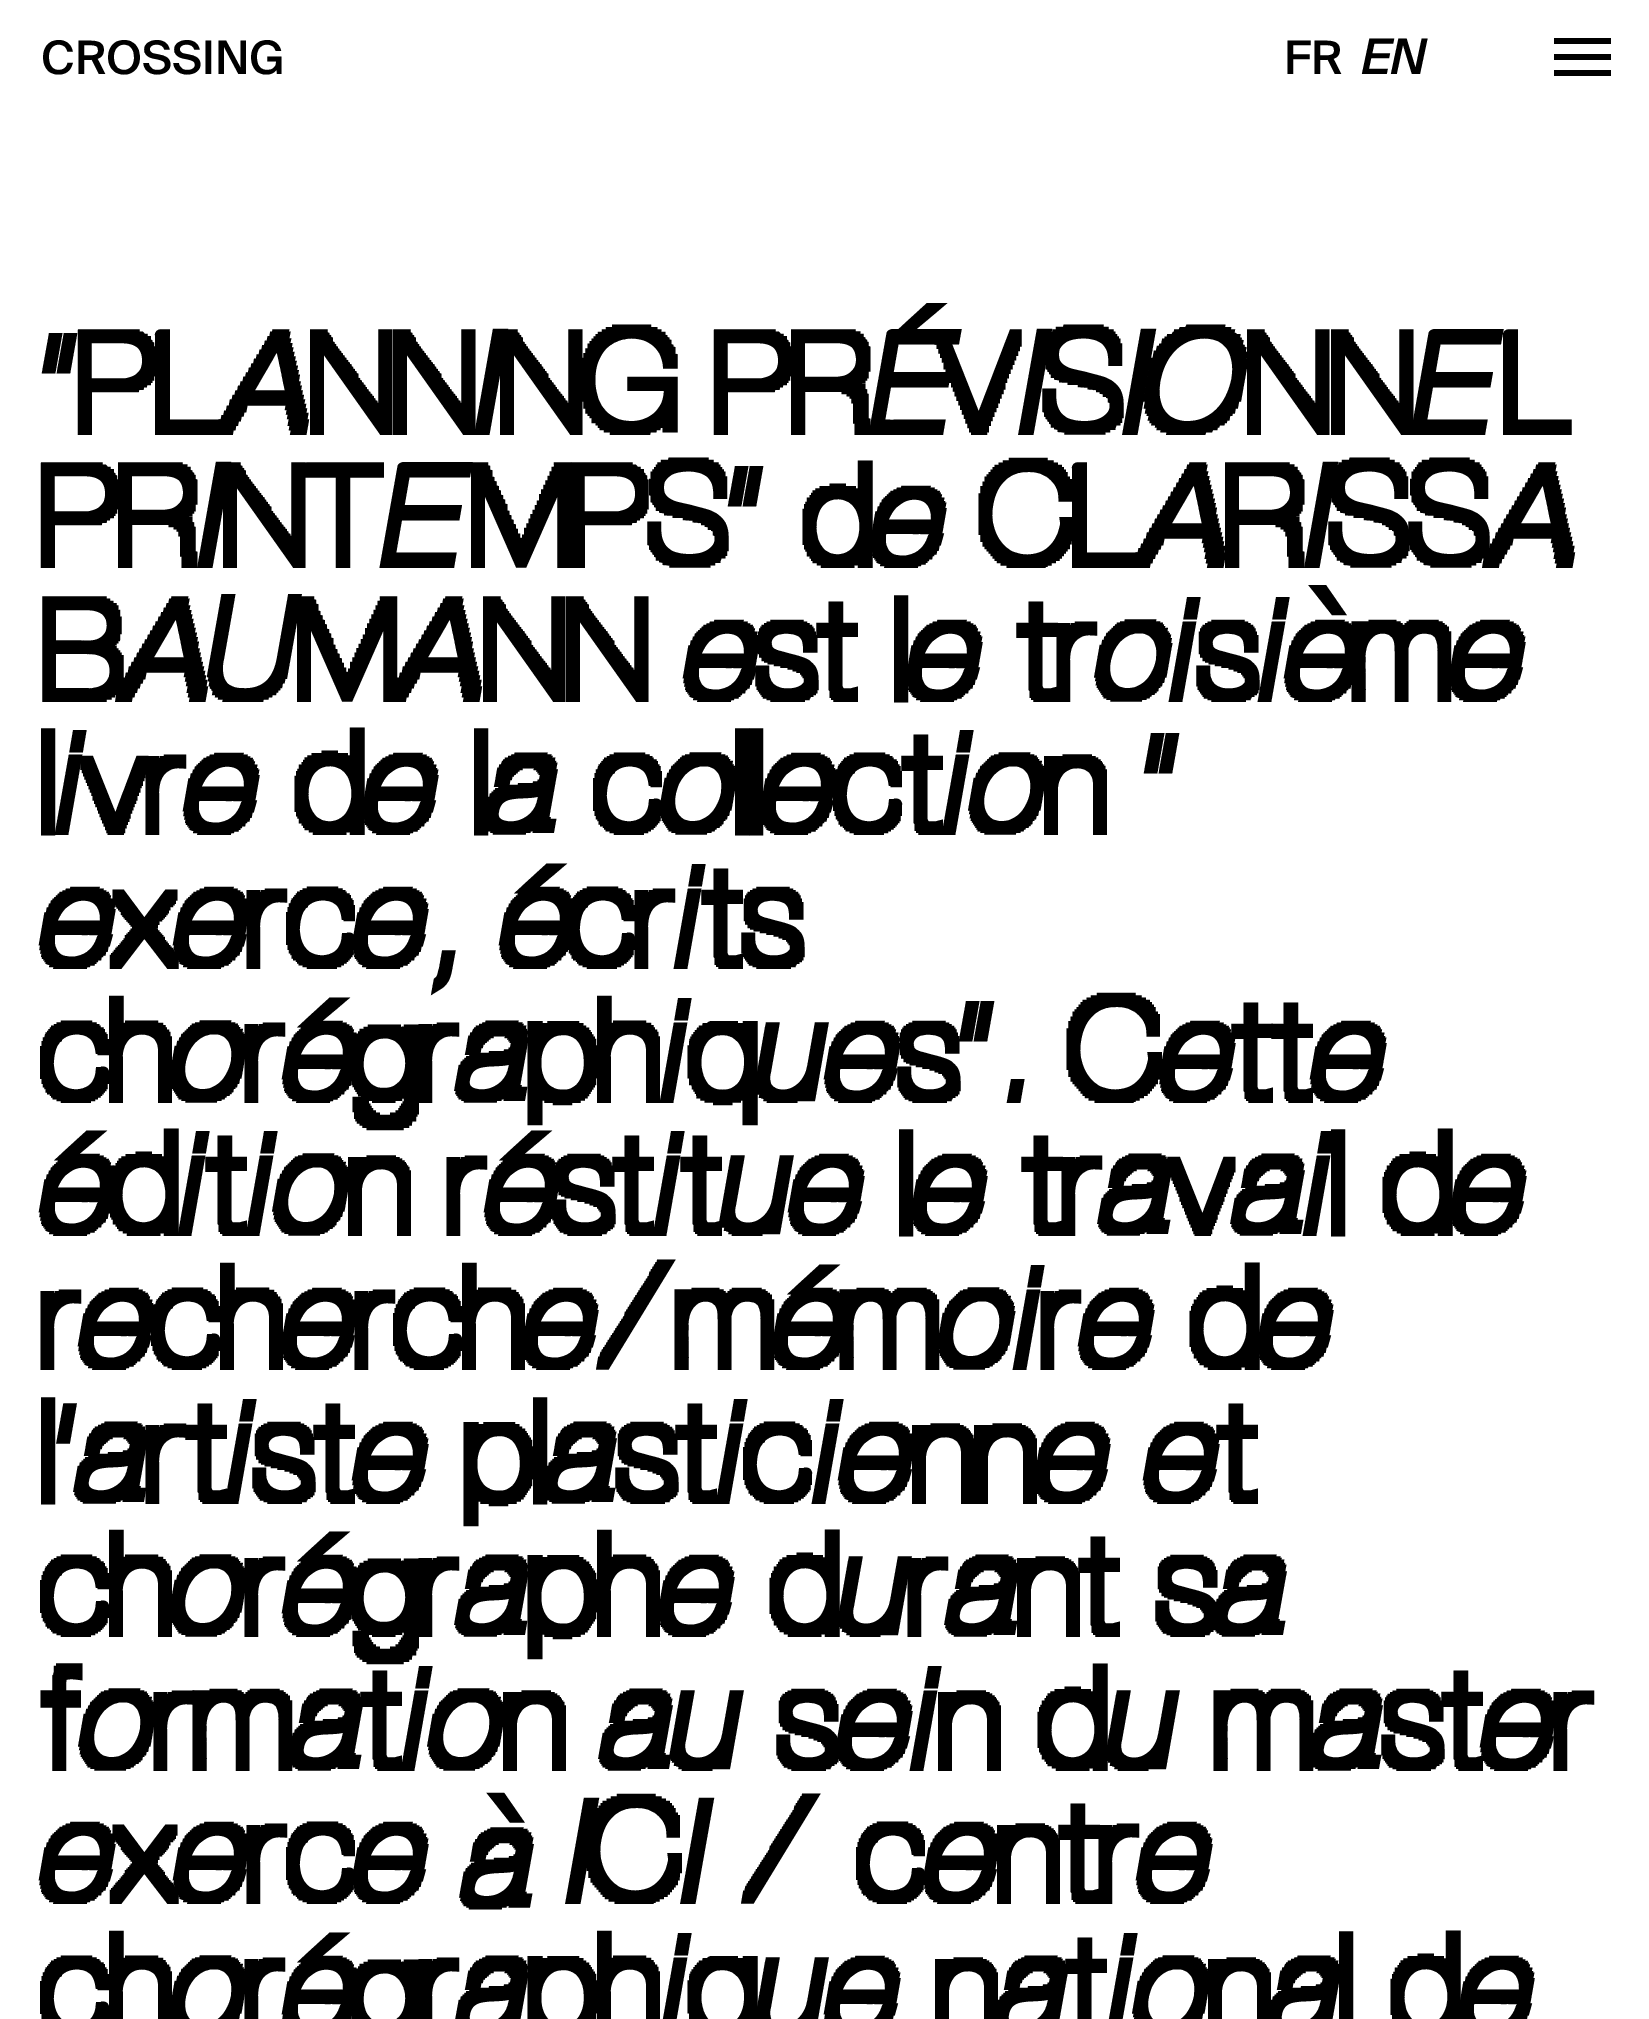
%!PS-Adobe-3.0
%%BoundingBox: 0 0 1649 2019
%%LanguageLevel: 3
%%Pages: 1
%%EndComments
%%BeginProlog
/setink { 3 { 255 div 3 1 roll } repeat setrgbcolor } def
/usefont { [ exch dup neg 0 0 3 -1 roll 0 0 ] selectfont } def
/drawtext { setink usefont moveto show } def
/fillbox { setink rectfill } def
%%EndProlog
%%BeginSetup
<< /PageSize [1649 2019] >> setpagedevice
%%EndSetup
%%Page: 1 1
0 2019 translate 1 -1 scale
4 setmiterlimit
0 0 1649 2019 255 255 255 fillbox
(CROSSING) 41 74 /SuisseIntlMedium-Medium 46.25 0 0 0 drawtext
1554 54 57 6 0 0 0 fillbox
1554 70 57 6 0 0 0 fillbox
1554 38 57 6 0 0 0 fillbox
(FR) 1284 74 /SuisseIntlMedium-Medium 46.25 0 0 0 drawtext
/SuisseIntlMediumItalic-Medium 49 usefont
1361 74 moveto -2 0 (EN) ashow
("PLANNING PRÉVISIONNEL) 41 435 /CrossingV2-Regular 133.6 0 0 0 drawtext
(PRINTEMPS" de CLARISSA) 41 568 /CrossingV2-Regular 133.6 0 0 0 drawtext
(BAUMANN est le troisième) 41 702 /CrossingV2-Regular 133.6 0 0 0 drawtext
(livre de la collection ") 41 835 /CrossingV2-Regular 133.6 0 0 0 drawtext
(exerce, écrits) 41 969 /CrossingV2-Regular 133.6 0 0 0 drawtext
(chorégraphiques". Cette) 41 1103 /CrossingV2-Regular 133.6 0 0 0 drawtext
(édition réstitue le travail de) 41 1236 /CrossingV2-Regular 133.6 0 0 0 drawtext
(recherche/mémoire de) 41 1370 /CrossingV2-Regular 133.6 0 0 0 drawtext
(l'artiste plasticienne et) 41 1504 /CrossingV2-Regular 133.6 0 0 0 drawtext
(chorégraphe durant sa) 41 1637 /CrossingV2-Regular 133.6 0 0 0 drawtext
(formation au sein du master) 41 1771 /CrossingV2-Regular 133.6 0 0 0 drawtext
(exerce à ICI / centre) 41 1904 /CrossingV2-Regular 133.6 0 0 0 drawtext
(chorégraphique national de) 41 2038 /CrossingV2-Regular 133.6 0 0 0 drawtext
showpage
%%EOF
